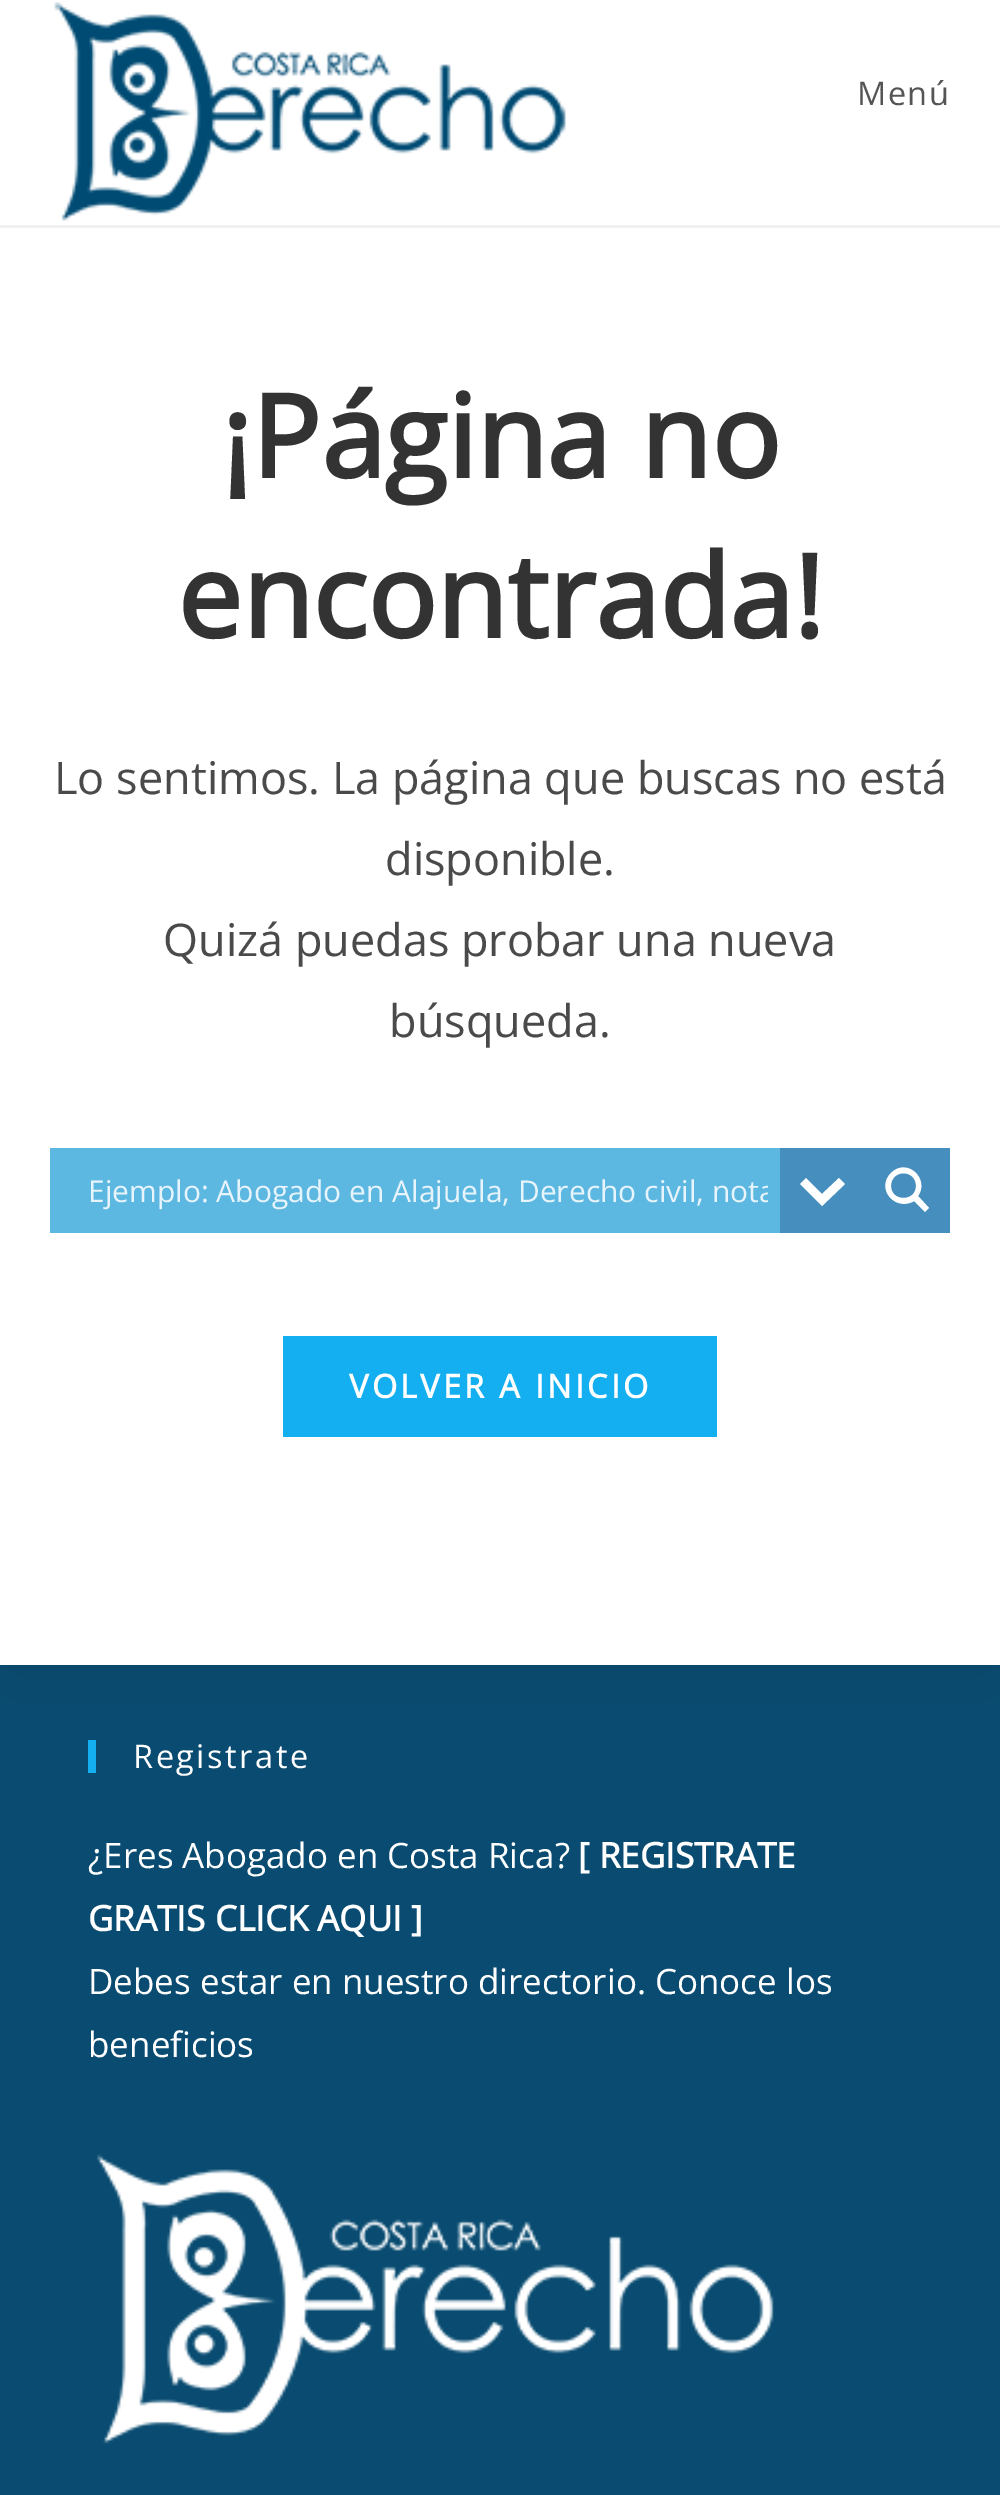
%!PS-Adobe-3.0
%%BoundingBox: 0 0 1000 2495
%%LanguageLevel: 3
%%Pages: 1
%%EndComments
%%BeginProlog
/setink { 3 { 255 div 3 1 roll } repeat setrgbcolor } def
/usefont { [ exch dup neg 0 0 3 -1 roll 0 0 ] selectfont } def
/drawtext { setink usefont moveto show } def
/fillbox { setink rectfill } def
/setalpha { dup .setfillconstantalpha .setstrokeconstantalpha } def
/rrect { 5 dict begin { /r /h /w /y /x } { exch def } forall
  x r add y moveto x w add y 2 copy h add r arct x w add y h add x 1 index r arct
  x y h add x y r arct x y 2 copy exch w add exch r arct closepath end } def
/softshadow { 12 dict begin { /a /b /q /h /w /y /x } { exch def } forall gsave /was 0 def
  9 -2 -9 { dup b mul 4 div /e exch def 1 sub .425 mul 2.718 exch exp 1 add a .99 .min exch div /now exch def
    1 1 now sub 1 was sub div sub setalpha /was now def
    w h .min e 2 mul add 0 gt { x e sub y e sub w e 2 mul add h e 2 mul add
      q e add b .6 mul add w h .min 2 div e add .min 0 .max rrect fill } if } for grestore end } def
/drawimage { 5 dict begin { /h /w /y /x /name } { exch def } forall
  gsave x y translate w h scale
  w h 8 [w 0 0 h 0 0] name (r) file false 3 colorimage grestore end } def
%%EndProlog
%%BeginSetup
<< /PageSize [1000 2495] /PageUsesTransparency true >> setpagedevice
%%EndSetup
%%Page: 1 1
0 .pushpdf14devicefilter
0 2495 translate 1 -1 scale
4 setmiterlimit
0 0 1000 2495 255 255 255 fillbox
0 1665 1000 830 10 76 113 fillbox
88 1740 8 33 19 175 240 fillbox
gsave
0 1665 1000 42 rectclip
0 0 0 setink
0 228 1000 1437 0 50 0.1 softshadow
grestore
0 164 1000 61 255 255 255 fillbox
0 225 1000 3 241 241 241 fillbox
(assets/img1.rgb) 54 2 512 219 drawimage
/OpenSans-Regular 32.5 usefont
85 85 85 setink
857 105 moveto 1.5 0 (Menú) ashow
(¡Página no) 221 478 /OpenSans-Bold 115 51 51 51 drawtext
(encontrada!) 177 638 /OpenSans-Bold 115 51 51 51 drawtext
(Lo sentimos. La página que buscas no está) 54 794 /OpenSans-Regular 45 74 74 74 drawtext
(disponible.) 385 875 /OpenSans-Regular 45 74 74 74 drawtext
(Quizá puedas probar una nueva) 163 956 /OpenSans-Regular 45 74 74 74 drawtext
(búsqueda.) 389 1037 /OpenSans-Regular 45 74 74 74 drawtext
50 1148 730 85 92 183 225 fillbox
780 1148 170 85 70 142 190 fillbox
255 255 255 setink
839 1178 moveto 845 1184 lineto 822 1206 lineto 800 1184 lineto 806 1178 lineto 822 1194 lineto closepath fill
gsave
88 1148 680 85 8 rrect clip newpath
(Ejemplo: Abogado en Alajuela, Derecho civil, nota) 88 1202 /OpenSans-Regular 30 231 244 251 drawtext
grestore
929 1208 moveto 918 1196 lineto 930 1179 907 1157 891 1173 curveto 875 1189 896 1212 914 1201 curveto 925 1212 lineto closepath 891 1186 moveto 891 1169 916 1169 916 1186 curveto 916 1202 891 1202 891 1186 curveto closepath fill
283 1336 434 101 19 175 240 fillbox
/OpenSans-Bold 32.5 usefont
255 255 255 setink
349 1398 moveto 3.25 0 (VOLVER A INICIO) ashow
/OpenSans-Regular 32.5 usefont
133 1768 moveto 2.5 0 (Registrate) ashow
(¿Eres Abogado en Costa Rica?) 88 1868 /OpenSans-Regular 35 255 255 255 drawtext
([ REGISTRATE) 578 1868 /OpenSans-Bold 35 255 255 255 drawtext
(GRATIS CLICK AQUI ]) 88 1931 /OpenSans-Bold 35 255 255 255 drawtext
(Debes estar en nuestro directorio. Conoce los) 88 1994 /OpenSans-Regular 35 255 255 255 drawtext
(beneficios) 88 2057 /OpenSans-Regular 35 255 255 255 drawtext
(assets/img2.rgb) 97 2154 677 290 drawimage
.poppdf14devicefilter showpage
%%EOF
